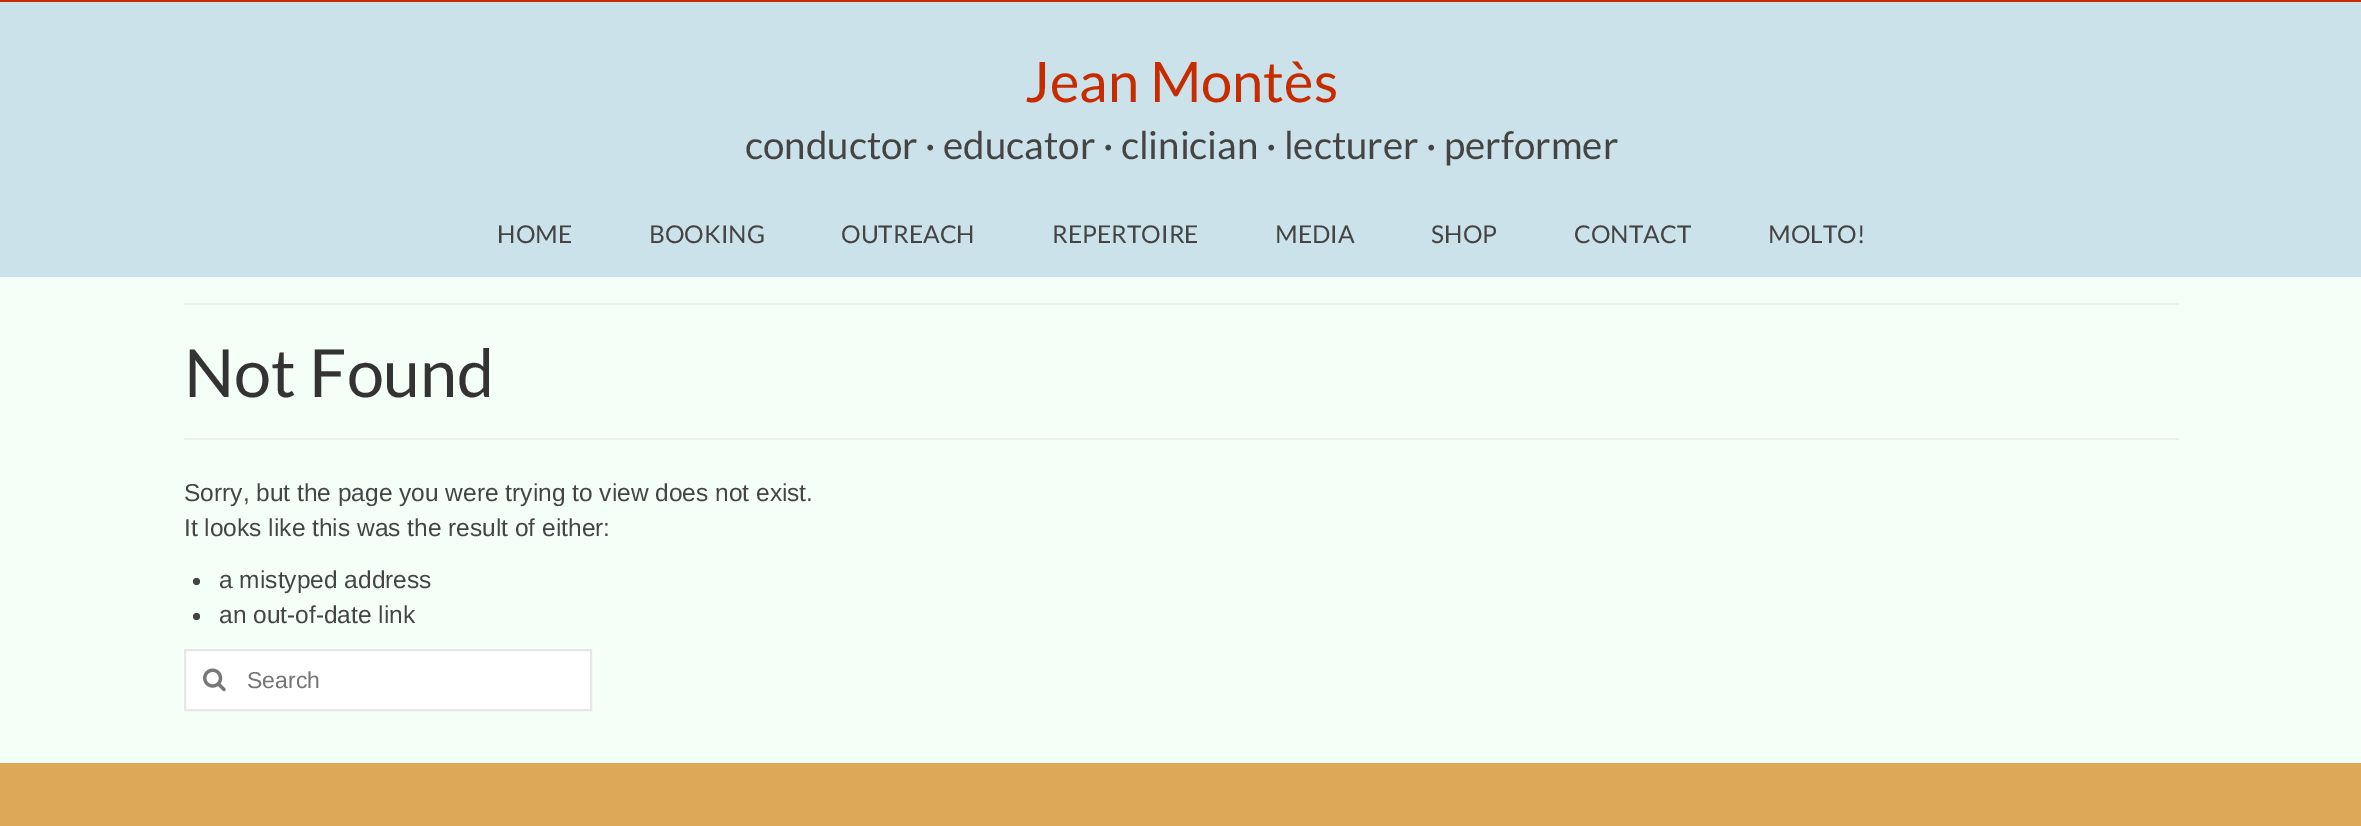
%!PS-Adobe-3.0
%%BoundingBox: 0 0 2361 826
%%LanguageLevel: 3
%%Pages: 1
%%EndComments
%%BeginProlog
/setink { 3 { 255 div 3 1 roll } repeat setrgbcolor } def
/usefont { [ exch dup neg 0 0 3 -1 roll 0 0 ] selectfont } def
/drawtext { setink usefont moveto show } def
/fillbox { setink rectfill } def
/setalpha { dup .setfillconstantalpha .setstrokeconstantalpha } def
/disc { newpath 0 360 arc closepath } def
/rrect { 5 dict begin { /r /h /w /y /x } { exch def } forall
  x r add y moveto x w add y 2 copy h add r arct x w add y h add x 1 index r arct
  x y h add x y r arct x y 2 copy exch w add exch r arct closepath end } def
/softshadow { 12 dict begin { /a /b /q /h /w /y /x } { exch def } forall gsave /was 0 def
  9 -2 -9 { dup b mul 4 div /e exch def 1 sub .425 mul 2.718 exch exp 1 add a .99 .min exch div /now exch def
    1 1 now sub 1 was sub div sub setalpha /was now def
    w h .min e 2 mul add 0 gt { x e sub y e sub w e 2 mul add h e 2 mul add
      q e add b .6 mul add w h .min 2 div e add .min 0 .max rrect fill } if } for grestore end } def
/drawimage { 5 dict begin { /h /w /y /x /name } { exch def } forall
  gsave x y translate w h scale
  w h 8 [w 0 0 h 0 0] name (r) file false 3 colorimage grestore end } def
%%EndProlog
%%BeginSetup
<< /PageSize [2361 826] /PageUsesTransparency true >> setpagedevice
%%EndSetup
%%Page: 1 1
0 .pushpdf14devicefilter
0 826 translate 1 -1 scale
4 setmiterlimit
0 0 2361 826 204 226 234 fillbox
0 0 2361 2 199 44 0 fillbox
(Jean Montès) 1025 102 /Lato-Regular 56 199 44 0 drawtext
(conductor · educator · clinician · lecturer · performer) 745 159 /Lato-Regular 38.5 68 68 68 drawtext
(HOME) 497 243 /Lato-Regular 24.5 68 68 68 drawtext
(BOOKING) 649 243 /Lato-Regular 24.5 68 68 68 drawtext
(OUTREACH) 841 243 /Lato-Regular 24.5 68 68 68 drawtext
(REPERTOIRE) 1052 243 /Lato-Regular 24.5 68 68 68 drawtext
(MEDIA) 1275 243 /Lato-Regular 24.5 68 68 68 drawtext
(SHOP) 1431 243 /Lato-Regular 24.5 68 68 68 drawtext
(CONTACT) 1574 243 /Lato-Regular 24.5 68 68 68 drawtext
(MOLTO!) 1768 243 /Lato-Regular 24.5 68 68 68 drawtext
0 277 2361 486 244 255 247 fillbox
184 303 1995 2 232 242 235 fillbox
184 438 1995 2 232 242 235 fillbox
(Not Found) 184 397 /Lato-Regular 66.5 51 51 51 drawtext
(Sorry, but the page you were trying to view does not exist.) 184 501 /LiberationSans-Regular 24.5 68 68 68 drawtext
(It looks like this was the result of either:) 184 536 /LiberationSans-Regular 24.5 68 68 68 drawtext
196.5 581.5 3.5 disc fill
(a mistyped address) 219 588 /LiberationSans-Regular 24.5 68 68 68 drawtext
196.5 616.5 3.5 disc fill
(an out-of-date link) 219 623 /LiberationSans-Regular 24.5 68 68 68 drawtext
255 255 255 setink
184 649 408 62 0 2.5 1 softshadow
185 650 moveto 591 650 lineto 591 710 lineto 185 710 lineto closepath gsave fill grestore
231 231 231 setink
2 setlinewidth
stroke
(assets/img1.rgb) 203 668 23 24 drawimage
(Search) 247 688 /LiberationSans-Regular 23 117 117 117 drawtext
0 763 2361 63 221 169 86 fillbox
.poppdf14devicefilter showpage
%%EOF
